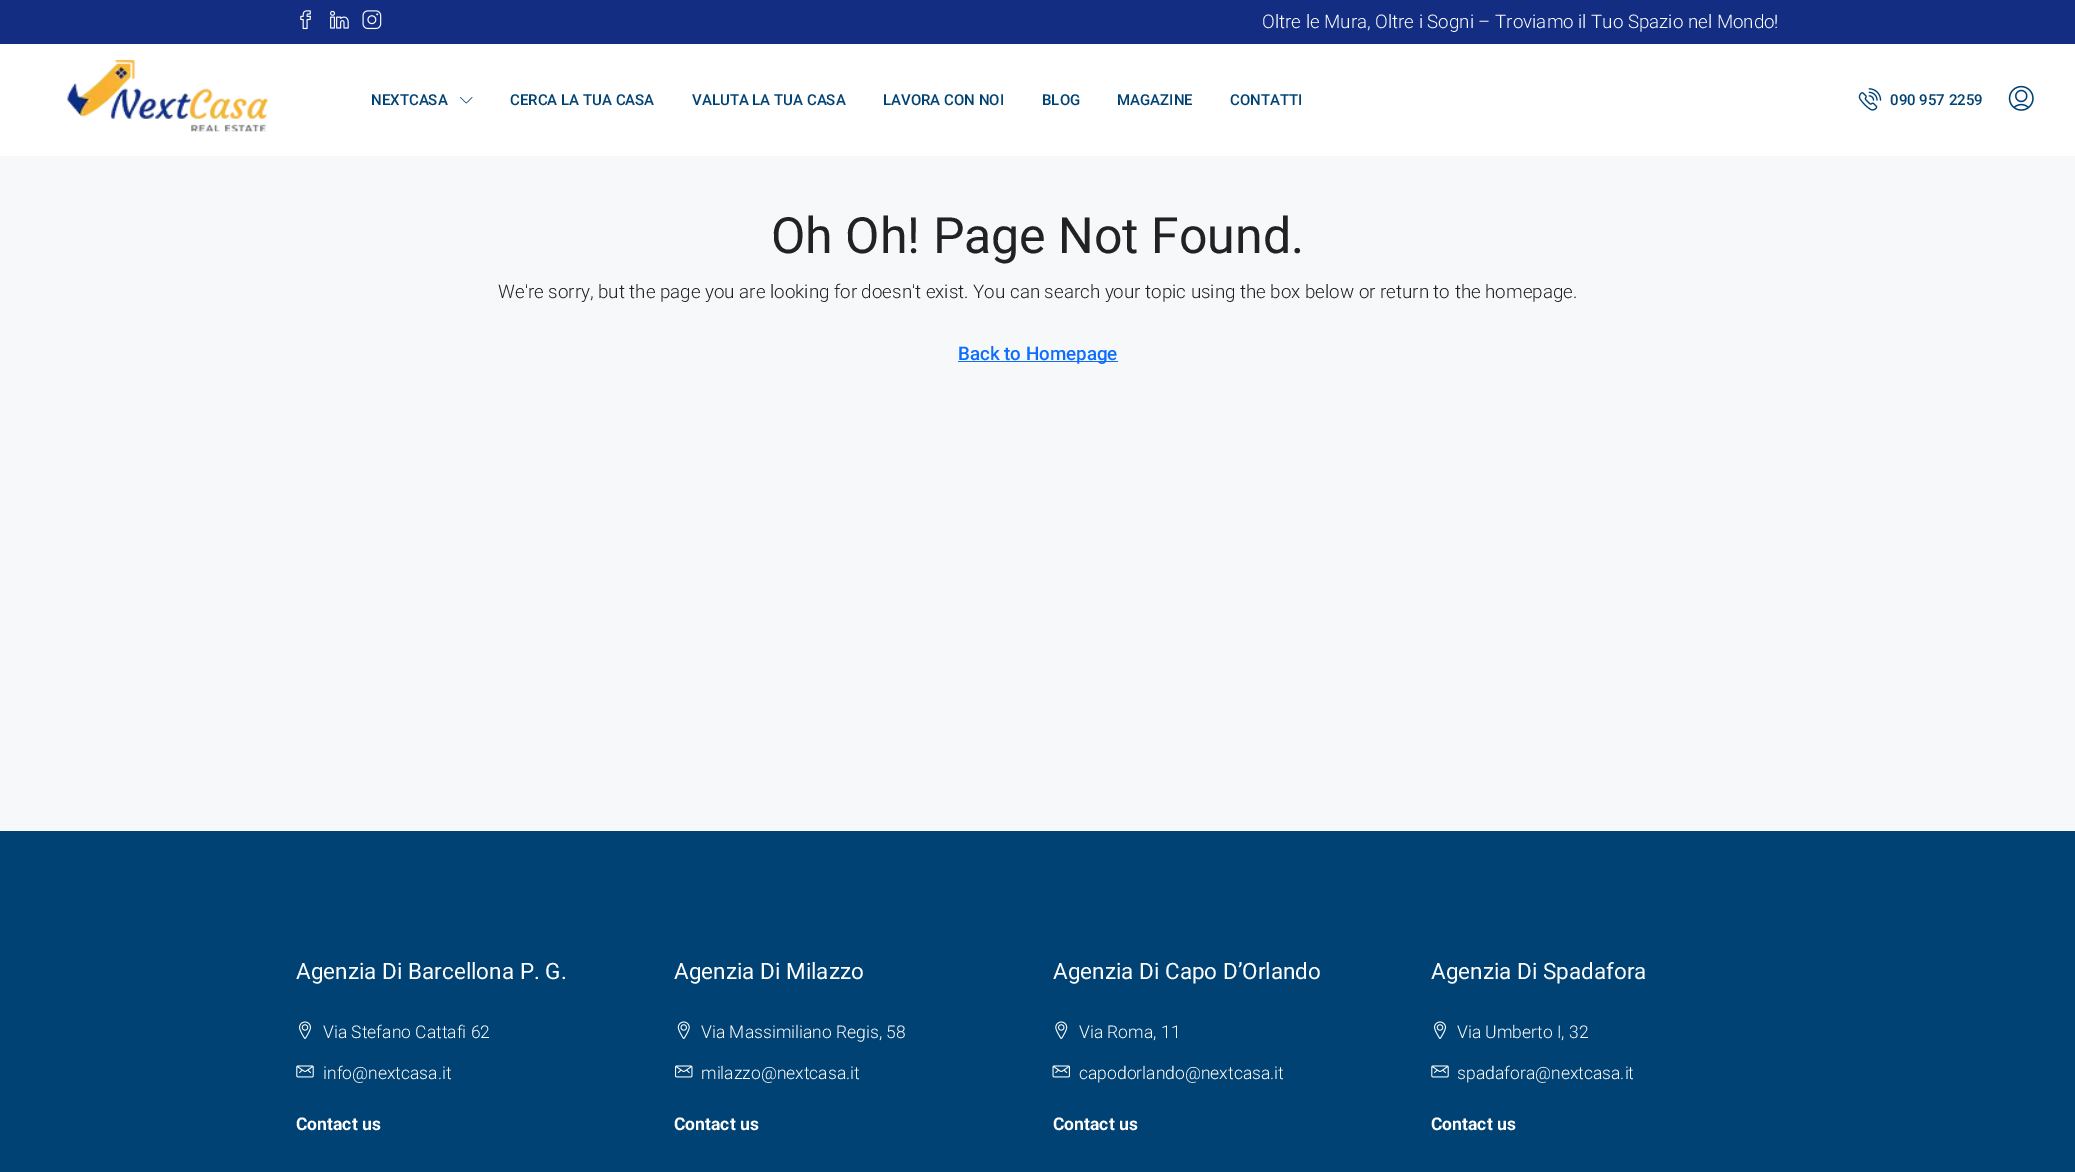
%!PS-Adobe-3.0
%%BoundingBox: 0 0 2075 1172
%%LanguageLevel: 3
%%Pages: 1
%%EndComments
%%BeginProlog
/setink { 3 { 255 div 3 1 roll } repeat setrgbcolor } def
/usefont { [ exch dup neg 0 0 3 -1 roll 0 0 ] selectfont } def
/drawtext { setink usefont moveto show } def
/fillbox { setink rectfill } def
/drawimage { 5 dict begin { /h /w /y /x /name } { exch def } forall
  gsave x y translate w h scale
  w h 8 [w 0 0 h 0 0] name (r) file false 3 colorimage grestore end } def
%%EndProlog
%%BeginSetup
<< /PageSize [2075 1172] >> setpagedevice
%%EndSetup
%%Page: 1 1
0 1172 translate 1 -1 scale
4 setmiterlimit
0 0 2075 1172 247 248 249 fillbox
0 0 2075 44 18 45 129 fillbox
(assets/img1.rgb) 300 10 11 20 drawimage
(assets/img2.rgb) 330 10 19 19 drawimage
(assets/img3.rgb) 362 10 20 20 drawimage
(Oltre le Mura, Oltre i Sogni – Troviamo il Tuo Spazio nel Mondo!) 1262 28 /Roboto-Light 18.75 255 255 255 drawtext
0 44 2075 112 255 255 255 fillbox
(assets/img4.rgb) 67 59 201 74 drawimage
(NEXTCASA) 371 105 /Roboto-Medium 15 0 66 116 drawtext
(assets/img5.rgb) 460 97 13 7 drawimage
(CERCA LA TUA CASA) 510 105 /Roboto-Medium 15 0 66 116 drawtext
(VALUTA LA TUA CASA) 692 105 /Roboto-Medium 15 0 66 116 drawtext
(LAVORA CON NOI) 883 105 /Roboto-Medium 15 0 66 116 drawtext
(BLOG) 1042 105 /Roboto-Medium 15 0 66 116 drawtext
(MAGAZINE) 1117 105 /Roboto-Medium 15 0 66 116 drawtext
(CONTATTI) 1230 105 /Roboto-Medium 15 0 66 116 drawtext
(assets/img6.rgb) 1858 88 24 23 drawimage
(090 957 2259) 1890 105 /Roboto-Medium 15 0 66 116 drawtext
(assets/img7.rgb) 2008 85 26 26 drawimage
(Oh Oh! Page Not Found.) 771 253 /Roboto-Regular 50 34 34 34 drawtext
(We're sorry, but the page you are looking for doesn't exist. You can search your topic using the box below or return to the homepage.) 498 298 /Roboto-Light 18.75 34 34 34 drawtext
958 361 160 1 13 110 253 fillbox
(Back to Homepage) 958 360 /Roboto-Medium 18.75 13 110 253 drawtext
0 831 2075 341 0 66 116 fillbox
(Agenzia Di Barcellona P. G.) 296 979 /Roboto-Regular 22.5 255 255 255 drawtext
(assets/img8.rgb) 299 1021 12 18 drawimage
(Via Stefano Cattafi 62) 323 1038 /Roboto-Light 17.5 255 255 255 drawtext
(assets/img9.rgb) 296 1065 18 13 drawimage
(info@nextcasa.it) 323 1079 /Roboto-Light 17.5 255 255 255 drawtext
(Contact us) 296 1130 /Roboto-Bold 17.5 255 255 255 drawtext
(Agenzia Di Milazzo) 674 979 /Roboto-Regular 22.5 255 255 255 drawtext
(assets/img10.rgb) 677 1021 13 18 drawimage
(Via Massimiliano Regis, 58) 701 1038 /Roboto-Light 17.5 255 255 255 drawtext
(assets/img11.rgb) 675 1065 18 13 drawimage
(milazzo@nextcasa.it) 701 1079 /Roboto-Light 17.5 255 255 255 drawtext
(Contact us) 674 1130 /Roboto-Bold 17.5 255 255 255 drawtext
(Agenzia Di Capo D’Orlando) 1053 979 /Roboto-Regular 22.5 255 255 255 drawtext
(assets/img12.rgb) 1055 1021 13 18 drawimage
(Via Roma, 11) 1079 1038 /Roboto-Light 17.5 255 255 255 drawtext
(assets/img13.rgb) 1052 1065 18 13 drawimage
(capodorlando@nextcasa.it) 1079 1079 /Roboto-Light 17.5 255 255 255 drawtext
(Contact us) 1053 1130 /Roboto-Bold 17.5 255 255 255 drawtext
(Agenzia Di Spadafora) 1431 979 /Roboto-Regular 22.5 255 255 255 drawtext
(assets/img8.rgb) 1434 1021 12 18 drawimage
(Via Umberto I, 32) 1457 1038 /Roboto-Light 17.5 255 255 255 drawtext
(assets/img9.rgb) 1431 1065 18 13 drawimage
(spadafora@nextcasa.it) 1457 1079 /Roboto-Light 17.5 255 255 255 drawtext
(Contact us) 1431 1130 /Roboto-Bold 17.5 255 255 255 drawtext
showpage
%%EOF
